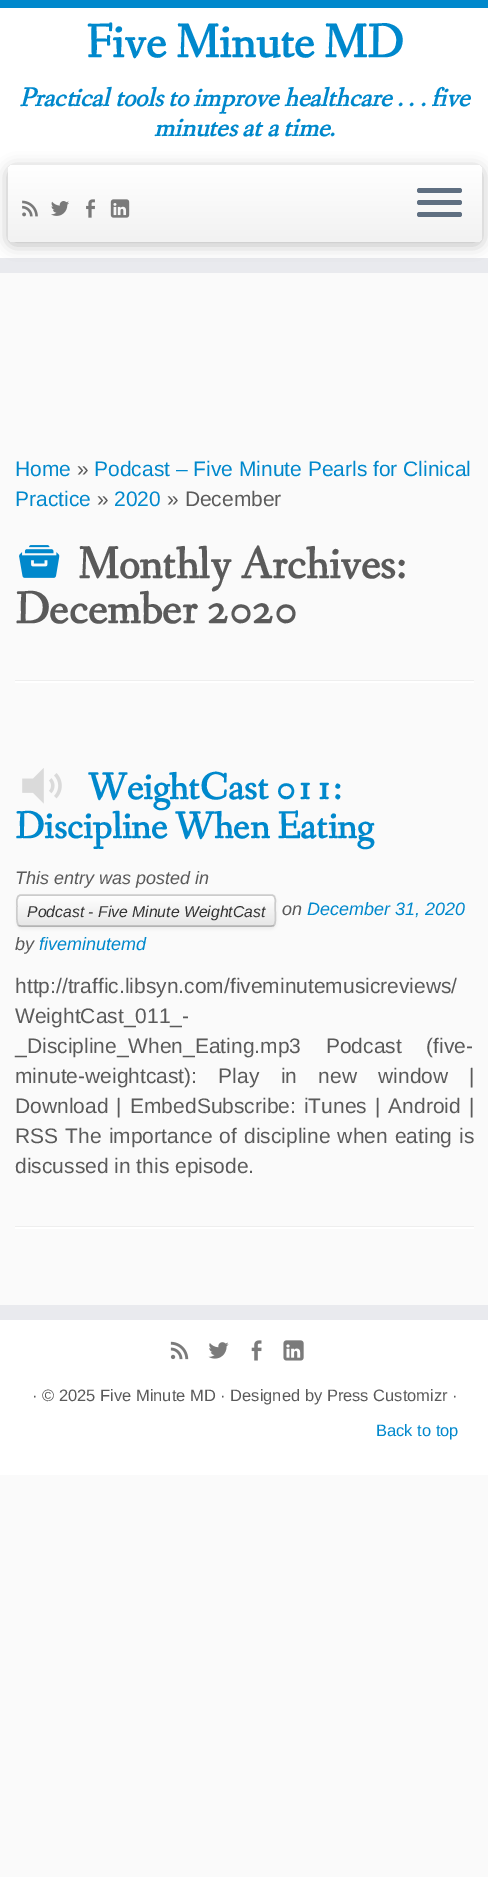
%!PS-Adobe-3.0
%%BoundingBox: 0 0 488 1877
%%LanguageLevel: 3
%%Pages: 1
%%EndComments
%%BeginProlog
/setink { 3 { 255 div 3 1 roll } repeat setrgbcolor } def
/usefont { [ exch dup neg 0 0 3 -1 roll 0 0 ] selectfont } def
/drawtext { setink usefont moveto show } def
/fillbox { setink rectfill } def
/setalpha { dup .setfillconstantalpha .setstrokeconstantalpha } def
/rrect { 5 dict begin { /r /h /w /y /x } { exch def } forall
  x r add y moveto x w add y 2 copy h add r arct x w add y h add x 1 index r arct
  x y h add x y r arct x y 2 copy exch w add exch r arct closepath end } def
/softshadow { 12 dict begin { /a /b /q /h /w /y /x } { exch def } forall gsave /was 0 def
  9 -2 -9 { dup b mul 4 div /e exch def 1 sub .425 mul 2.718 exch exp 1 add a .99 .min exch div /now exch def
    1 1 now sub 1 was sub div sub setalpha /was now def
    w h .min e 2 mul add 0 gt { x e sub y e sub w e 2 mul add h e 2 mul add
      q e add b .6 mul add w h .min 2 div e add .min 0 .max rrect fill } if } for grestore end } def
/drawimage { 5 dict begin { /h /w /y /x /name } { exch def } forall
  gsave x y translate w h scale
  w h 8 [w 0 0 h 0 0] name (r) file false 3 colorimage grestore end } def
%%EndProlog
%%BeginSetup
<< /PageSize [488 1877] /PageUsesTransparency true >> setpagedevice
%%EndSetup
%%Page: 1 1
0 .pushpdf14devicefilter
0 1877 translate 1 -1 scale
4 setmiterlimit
0 0 488 1877 250 250 250 fillbox
0 8 488 250 255 255 255 fillbox
0 0 488 8 0 136 204 fillbox
0 258 488 15 233 234 238 fillbox
(Five Minute MD) 86 57 /FanwoodText-Bold 48 0 136 204 drawtext
(Practical tools to improve healthcare . . . five) 19 106 /FanwoodText-BoldItalic 27 0 136 204 drawtext
(minutes at a time.) 154 136 /FanwoodText-BoldItalic 27 0 136 204 drawtext
0 0 0 setink
8 168 474 77 6 7.5 0.25 softshadow
gsave 8 165 474 77 6 rrect clip newpath
<< /ShadingType 2 /ColorSpace /DeviceRGB /Coords [245 165 245 242] /Extend [true true] /Function << /FunctionType 2 /Domain [0 1] /C0 [1 1 1] /C1 [0.949 0.949 0.949] /N 1 >> >> shfill grestore
(assets/img1.rgb) 22 200 16 17 drawimage
(assets/img2.rgb) 51 201 18 15 drawimage
(assets/img3.rgb) 86 199 9 19 drawimage
(assets/img4.rgb) 110 199 20 19 drawimage
95 111 129 setink
417 188 45 5 2.5 rrect fill
417 200 45 5 2.5 rrect fill
417 212 45 5 2.5 rrect fill
(Home) 15 476 /LiberationSans-Regular 21 0 136 204 drawtext
(») 77 476 /LiberationSans-Regular 21 90 90 90 drawtext
(Podcast – Five Minute Pearls for Clinical) 94 476 /LiberationSans-Regular 21 0 136 204 drawtext
(Practice) 15 506 /LiberationSans-Regular 21 0 136 204 drawtext
(») 97 506 /LiberationSans-Regular 21 90 90 90 drawtext
(2020) 114 506 /LiberationSans-Regular 21 0 136 204 drawtext
(» December) 167 506 /LiberationSans-Regular 21 90 90 90 drawtext
(assets/img5.rgb) 19 545 41 33 drawimage
(Monthly Archives:) 78 578 /FanwoodText-Bold 45.5 90 90 90 drawtext
(December 2020) 15 623 /FanwoodText-Bold 45.5 90 90 90 drawtext
15 680 459 1 238 238 238 fillbox
15 681 459 2 255 255 255 fillbox
(assets/img6.rgb) 22 768 40 36 drawimage
(WeightCast 011:) 88 799 /FanwoodText-Bold 38.5 0 136 204 drawtext
(Discipline When Eating) 15 838 /FanwoodText-Bold 38.5 0 136 204 drawtext
(This entry was posted in) 15 884 /LiberationSans-Italic 18 90 90 90 drawtext
0 0 0 setink
17 896 259 33 5 1.5 0.05 softshadow
gsave
17 894 259 33 5 rrect clip newpath
gsave 17 896 moveto 276 896 lineto 276 926 lineto 17 926 lineto closepath clip newpath
<< /ShadingType 2 /ColorSpace /DeviceRGB /Coords [146 896 146 926] /Extend [true true] /Function << /FunctionType 2 /Domain [0 1] /C0 [1 1 1] /C1 [0.902 0.902 0.902] /N 1 >> >> shfill grestore
grestore
0.2 setalpha
255 255 255 setink
21 897 moveto 272 897 lineto 275 897 274 907 274 908 curveto 274 925 lineto 275 925 275 924 275 923 curveto 275 899 lineto 275 897 274 896 272 896 curveto 21 896 lineto 19 896 18 897 18 899 curveto 18 900 lineto 18 898 19 897 21 897 curveto closepath fill
1 setalpha
179 179 179 setink
1.5 setlinewidth
274 925 moveto 273.5 926 272.5 926 271.5 926 curveto 21 926 lineto 20 926 19 926 18.5 925 curveto stroke
204 204 204 setink
18.5 925 moveto 16 923 17 910 17 906.5 curveto 17 903.5 15.5 895 21 895 curveto 271.5 895 lineto 277 895 275 903.5 275 906.5 curveto 275 910 276.5 923 274 925 curveto stroke
(Podcast - Five Minute WeightCast) 27 917 /LiberationSans-Italic 15.75 51 51 51 drawtext
(on) 282 915 /LiberationSans-Italic 18 90 90 90 drawtext
(December 31, 2020) 307 915 /LiberationSans-Italic 18 0 136 204 drawtext
(by) 15 950 /LiberationSans-Italic 18 90 90 90 drawtext
(fiveminutemd) 39 950 /LiberationSans-Italic 18 0 136 204 drawtext
(http://traffic.libsyn.com/fiveminutemusicreviews/) 15 993 /LiberationSans-Regular 21 90 90 90 drawtext
(WeightCast_011_-) 15 1023 /LiberationSans-Regular 21 90 90 90 drawtext
15 1053 moveto 19 0 32 (_Discipline_When_Eating.mp3 Podcast \(five-) widthshow
15 1083 moveto 15.5 0 32 (minute-weightcast\): Play in new window |) widthshow
15 1113 moveto 2.25 0 32 (Download | EmbedSubscribe: iTunes | Android |) widthshow
15 1143 moveto 1.25 0 32 (RSS The importance of discipline when eating is) widthshow
(discussed in this episode.) 15 1173 /LiberationSans-Regular 21 90 90 90 drawtext
15 1226 459 1 238 238 238 fillbox
15 1227 459 2 255 255 255 fillbox
0 1305 488 15 233 234 238 fillbox
0 1320 488 155 255 255 255 fillbox
(assets/img7.rgb) 170 1341 19 19 drawimage
(assets/img8.rgb) 208 1342 21 17 drawimage
(assets/img9.rgb) 251 1340 11 21 drawimage
(assets/img10.rgb) 283 1340 21 21 drawimage
(· © 2025 Five Minute MD · Designed by Press Customizr ·) 32 1401 /LiberationSans-Regular 16.5 90 90 90 drawtext
(Back to top) 376 1436 /LiberationSans-Regular 16.5 0 136 204 drawtext
.poppdf14devicefilter showpage
%%EOF
